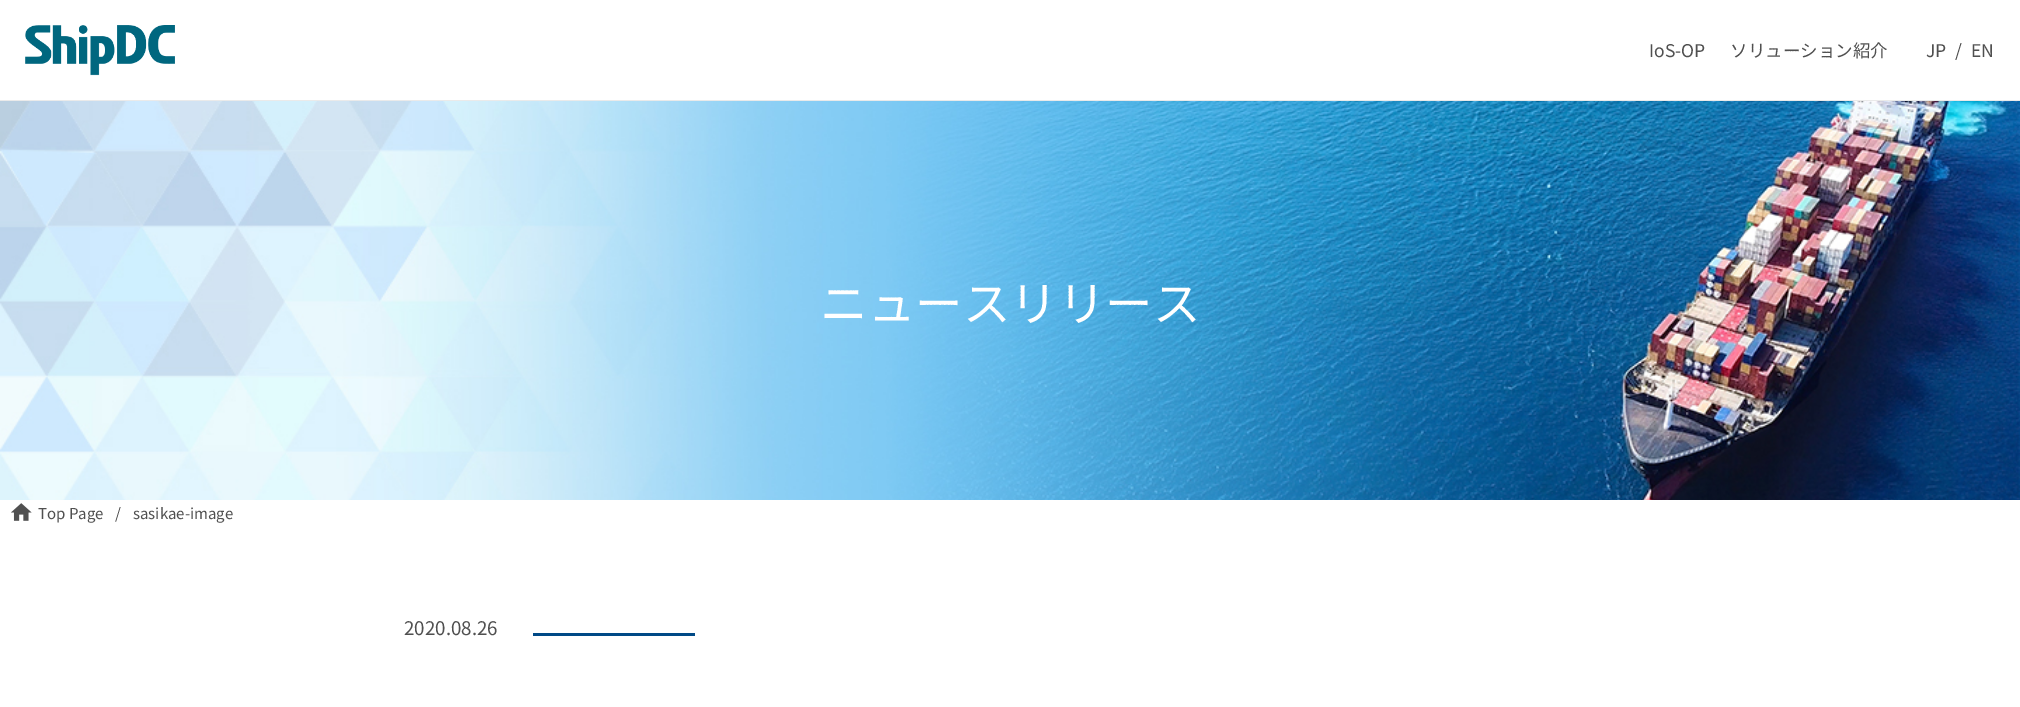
%!PS-Adobe-3.0
%%BoundingBox: 0 0 2020 707
%%LanguageLevel: 3
%%Pages: 1
%%EndComments
%%BeginProlog
/setink { 3 { 255 div 3 1 roll } repeat setrgbcolor } def
/usefont { [ exch dup neg 0 0 3 -1 roll 0 0 ] selectfont } def
/drawtext { setink usefont moveto show } def
/fillbox { setink rectfill } def
/drawimage { 5 dict begin { /h /w /y /x /name } { exch def } forall
  gsave x y translate w h scale
  w h 8 [w 0 0 h 0 0] name (r) file false 3 colorimage grestore end } def
%%EndProlog
%%BeginSetup
<< /PageSize [2020 707] >> setpagedevice
%%EndSetup
%%Page: 1 1
0 707 translate 1 -1 scale
4 setmiterlimit
0 0 2020 707 255 255 255 fillbox
(assets/img1.rgb) 25 25 150 51 drawimage
0 100 2020 1 234 234 234 fillbox
(IoS-OP) 1649 57 /NotoSansJP-Regular 17.5 80 80 80 drawtext
(ソリューション紹介) 1730 57 /NotoSansJP-Regular 17.5 80 80 80 drawtext
(JP) 1926 57 /NotoSansJP-Regular 17.5 80 80 80 drawtext
(/) 1955 57 /NotoSansJP-Regular 17.5 80 80 80 drawtext
(EN) 1971 57 /NotoSansJP-Regular 17.5 80 80 80 drawtext
(assets/img2.rgb) 0 101 2020 399 drawimage
(ニュースリリース) 820 321 /NotoSansJP-Regular 47.5 255 255 255 drawtext
(assets/img3.rgb) 11 503 21 18 drawimage
(Top Page) 38 519 /NotoSansJP-Regular 15 80 80 80 drawtext
(/) 115 519 /NotoSansJP-Regular 15 80 80 80 drawtext
(sasikae-image) 133 519 /NotoSansJP-Regular 15 80 80 80 drawtext
(2020.08.26) 404 635 /NotoSansJP-Regular 18.75 80 80 80 drawtext
533 633 162 3 0 73 134 fillbox
showpage
%%EOF
